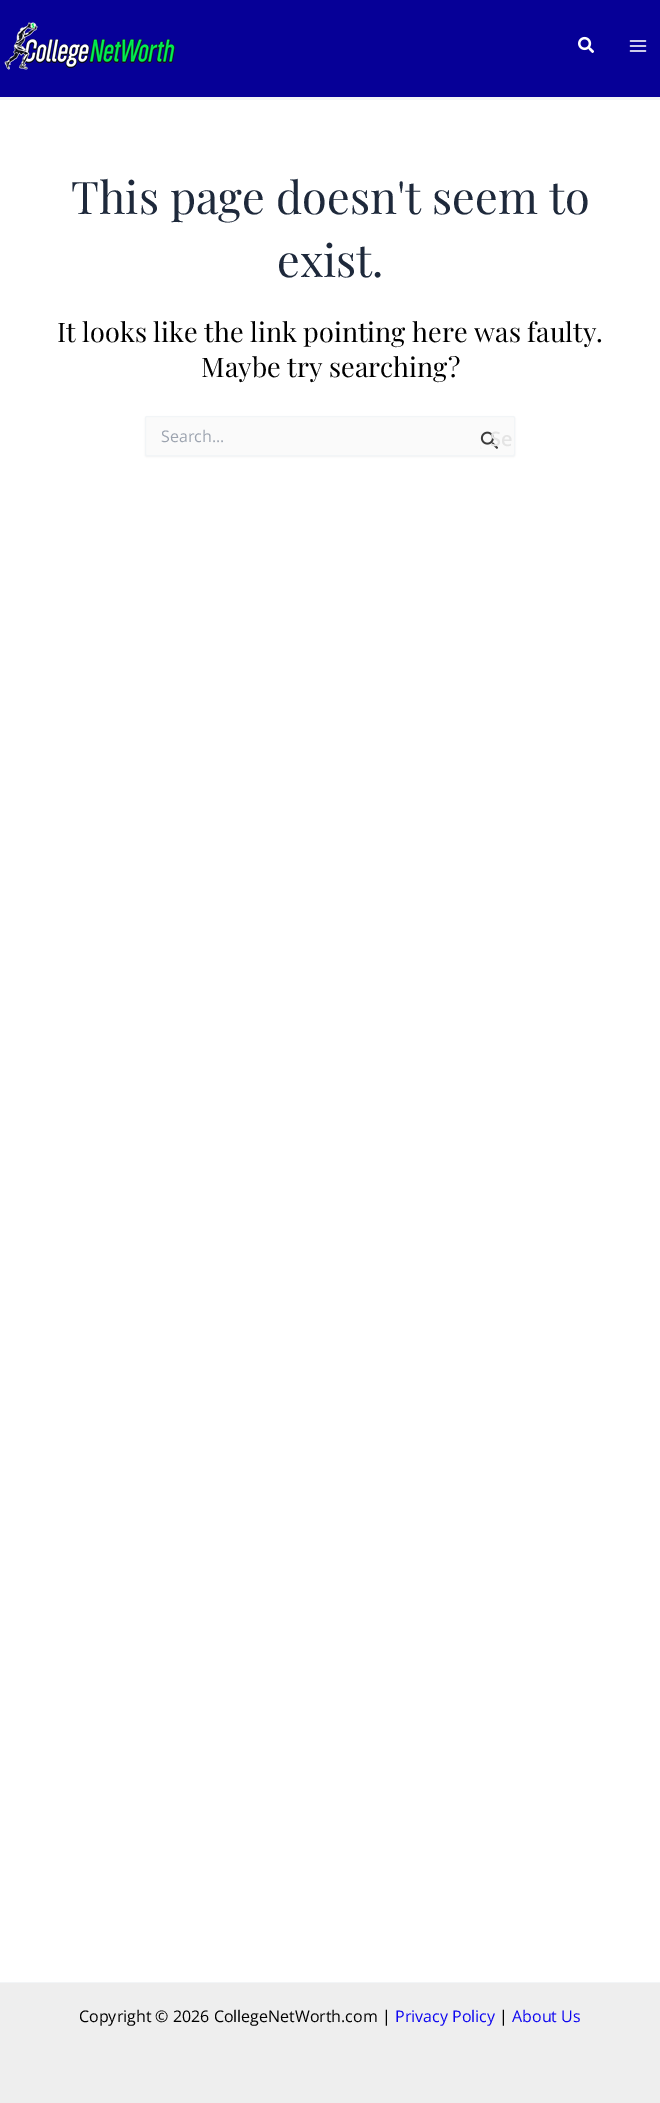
%!PS-Adobe-3.0
%%BoundingBox: 0 0 660 2103
%%LanguageLevel: 3
%%Pages: 1
%%EndComments
%%BeginProlog
/setink { 3 { 255 div 3 1 roll } repeat setrgbcolor } def
/usefont { [ exch dup neg 0 0 3 -1 roll 0 0 ] selectfont } def
/drawtext { setink usefont moveto show } def
/fillbox { setink rectfill } def
/setalpha { dup .setfillconstantalpha .setstrokeconstantalpha } def
/rrect { 5 dict begin { /r /h /w /y /x } { exch def } forall
  x r add y moveto x w add y 2 copy h add r arct x w add y h add x 1 index r arct
  x y h add x y r arct x y 2 copy exch w add exch r arct closepath end } def
/softshadow { 12 dict begin { /a /b /q /h /w /y /x } { exch def } forall gsave /was 0 def
  9 -2 -9 { dup b mul 4 div /e exch def 1 sub .425 mul 2.718 exch exp 1 add a .99 .min exch div /now exch def
    1 1 now sub 1 was sub div sub setalpha /was now def
    w h .min e 2 mul add 0 gt { x e sub y e sub w e 2 mul add h e 2 mul add
      q e add b .6 mul add w h .min 2 div e add .min 0 .max rrect fill } if } for grestore end } def
/drawimage { 5 dict begin { /h /w /y /x /name } { exch def } forall
  gsave x y translate w h scale
  w h 8 [w 0 0 h 0 0] name (r) file false 3 colorimage grestore end } def
%%EndProlog
%%BeginSetup
<< /PageSize [660 2103] /PageUsesTransparency true >> setpagedevice
%%EndSetup
%%Page: 1 1
0 .pushpdf14devicefilter
0 2103 translate 1 -1 scale
4 setmiterlimit
0 0 660 2103 255 255 255 fillbox
0 0 660 97 6 0 151 fillbox
0 97 660 3 242 245 247 fillbox
(assets/img1.rgb) 4 22 172 48 drawimage
(assets/img2.rgb) 578 36 16 17 drawimage
(assets/img3.rgb) 629 40 18 12 drawimage
(This page doesn't seem to) 71 214 /PlayfairDisplay-Regular 45 30 41 59 drawtext
(exist.) 277 277 /PlayfairDisplay-Regular 45 30 41 59 drawtext
(It looks like the link pointing here was faulty.) 57 342 /PlayfairDisplay-Regular 27 0 0 0 drawtext
(Maybe try searching?) 201 377 /PlayfairDisplay-Regular 27 0 0 0 drawtext
145 417 370 40 2 1 0.05 softshadow
250 250 250 setink
145.5 416.5 369 39 1.5 rrect gsave fill grestore
242 245 247 setink
stroke
(Search...) 161 442 /OpenSans-Regular 16 156 163 175 drawtext
(assets/img4.rgb) 480 431 18 18 drawimage
(Se) 490 446 /OpenSans-SemiBold 20 228 228 228 drawtext
0 1983 660 120 238 238 238 fillbox
0 1982 660 1 242 245 247 fillbox
(Copyright © 2026 CollegeNetWorth.com |) 79 2022 /OpenSans-Regular 16 0 0 0 drawtext
(Privacy Policy) 395 2022 /OpenSans-Regular 16 13 5 239 drawtext
(|) 499 2022 /OpenSans-Regular 16 0 0 0 drawtext
(About Us) 512 2022 /OpenSans-Regular 16 13 5 239 drawtext
.poppdf14devicefilter showpage
%%EOF
